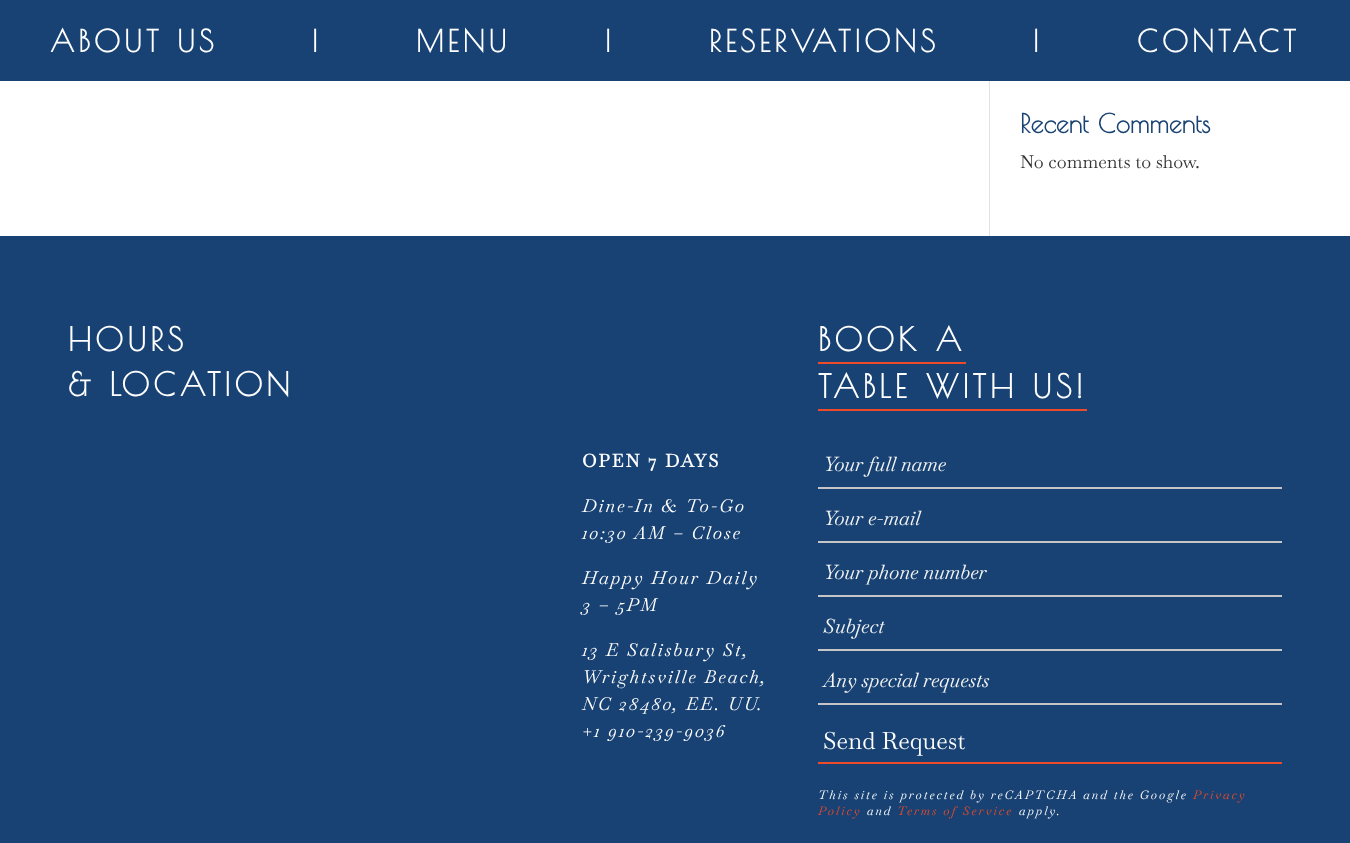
(async () => {
const canvas = document.querySelector("canvas")
canvas.width = 1350
canvas.height = 843
const c = canvas.getContext("2d")
c.miterLimit = 4
c.fontKerning = "normal"
function T(s,x,y){c.fillText(s,x,y)}
function R(x,y,w,h){c.fillRect(x,y,w,h)}
c.fillStyle="#fff"
R(0,0,1350,843)
c.fillStyle="#184273"
R(0,0,1350,81)
c.letterSpacing="4px"
c.font="bold 30px Poiret One"
c.fillStyle="#fff"
T("ABOUT US",50,52)
T("|",312,52)
T("MENU",416,52)
T("|",605,52)
T("RESERVATIONS",709,52)
T("|",1033,52)
T("CONTACT",1137,52)
c.fillStyle="#e2e2e2"
R(989,81,1,155)
c.letterSpacing="0px"
c.font="bold 26px Poiret One"
c.fillStyle="#184273"
T("Recent Comments",1020,133)
c.font="18px Baskervville"
c.fillStyle="#333"
T("No comments to show.",1020,168)
c.fillStyle="#184273"
R(0,236,1350,607)
c.letterSpacing="4px"
c.font="bold 32px Poiret One"
c.fillStyle="#fff"
T("HOURS",68,351)
T("& LOCATION",68,396)
c.letterSpacing="2px"
c.font="bold 18px Baskervville"
T("OPEN 7 DAYS",582,467)
c.font="italic 18px Baskervville"
T("Dine-In & To-Go",582,512)
T("10:30 AM – Close",582,539)
T("Happy Hour Daily",582,584)
T("3 – 5PM",582,611)
T("13 E Salisbury St,",582,656)
T("Wrightsville Beach,",582,683)
T("NC 28480, EE. UU.",582,710)
T("+1 910-239-9036",582,737)
c.fillStyle="#ee4928"
R(818,362,148,2)
c.letterSpacing="4px"
c.font="bold 32px Poiret One"
c.fillStyle="#fff"
T("BOOK A",818,351)
c.fillStyle="#ee4928"
R(818,409,269,2)
c.fillStyle="#fff"
T("TABLE WITH US!",818,398)
c.fillStyle="#c6c6c6"
R(818,487,464,2)
c.letterSpacing="0px"
c.font="italic 20px Baskervville"
c.fillStyle="#f4f4f4"
T("Your full name",823,471)
c.fillStyle="#c6c6c6"
R(818,541,464,2)
c.fillStyle="#f4f4f4"
T("Your e-mail",823,525)
c.fillStyle="#c6c6c6"
R(818,595,464,2)
c.fillStyle="#f4f4f4"
T("Your phone number",823,579)
c.fillStyle="#c6c6c6"
R(818,649,464,2)
c.fillStyle="#f4f4f4"
T("Subject",823,633)
c.fillStyle="#c6c6c6"
R(818,703,464,2)
c.fillStyle="#f4f4f4"
T("Any special requests",823,687)
c.fillStyle="#ee4928"
R(818,762,464,2)
c.font="24px Baskervville"
c.fillStyle="#fff"
T("Send Request",823,749)
c.letterSpacing="2px"
c.font="italic 12px Baskervville"
T("This site is protected by reCAPTCHA and the Google",818,799)
c.fillStyle="#ee4928"
T("Privacy",1193,799)
T("Policy",818,815)
c.fillStyle="#fff"
T("and",867,815)
c.fillStyle="#ee4928"
T("Terms of Service",897,815)
c.fillStyle="#fff"
T("apply.",1019,815)
})()
